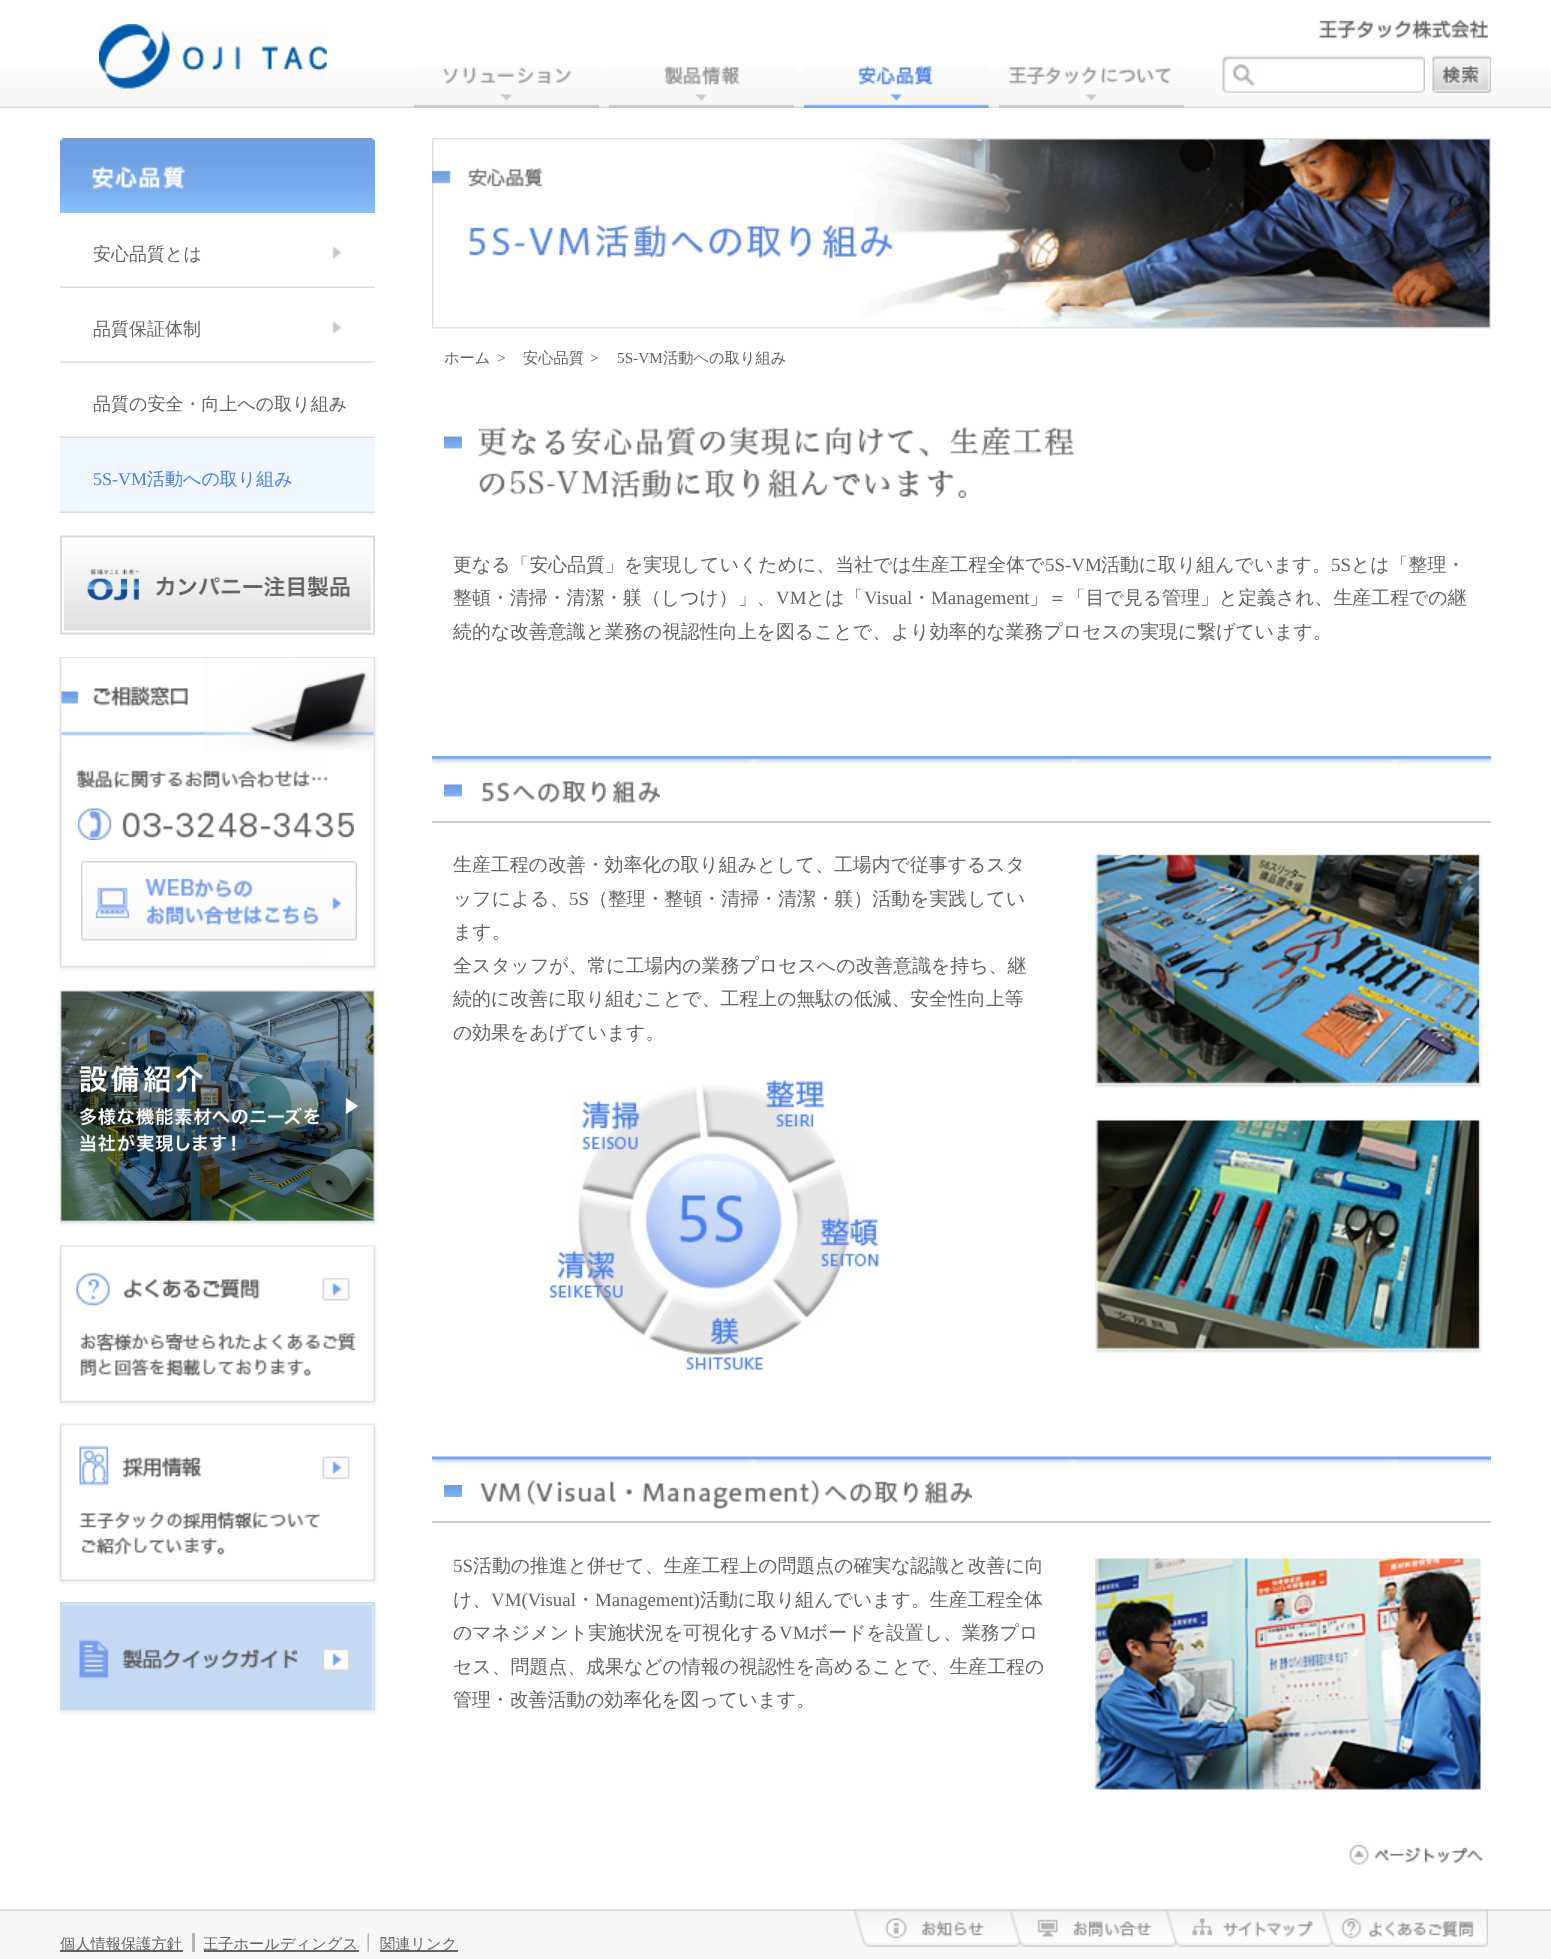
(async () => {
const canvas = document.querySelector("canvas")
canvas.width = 1551
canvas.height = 1959
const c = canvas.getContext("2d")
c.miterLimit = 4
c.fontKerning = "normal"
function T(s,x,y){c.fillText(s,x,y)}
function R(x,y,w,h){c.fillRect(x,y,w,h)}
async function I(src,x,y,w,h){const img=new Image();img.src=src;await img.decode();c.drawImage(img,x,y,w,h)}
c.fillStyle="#fff"
R(0,0,1551,1959)
await I("1.png",0,71,1551,37)
await I("2.png",99,24,228,65)
await I("3.png",598,67,1,41)
await I("4.png",414,67,185,41)
await I("5.png",793,66,1,42)
await I("6.png",609,66,185,42)
await I("7.png",804,66,185,42)
await I("5.png",1183,66,1,42)
await I("8.png",999,66,185,42)
await I("9.png",1318,19,170,20)
await I("10.png",1222,55,203,38)
await I("11.png",1432,55,59,38)
await I("12.png",60,138,315,75)
await I("13.png",60,246,315,42)
c.font="500 18px WenQuanYi Zen Hei"
c.fillStyle="#646464"
T("安心品質とは",93,260)
await I("13.png",60,321,315,42)
T("品質保証体制",93,335)
await I("13.png",60,396,315,42)
T("品質の安全・向上への取り組み",93,410)
await I("14.png",60,438,315,75)
c.font="18px Liberation Serif"
c.fillStyle="#497fe9"
T("5S-VM",93,485)
c.font="500 18px WenQuanYi Zen Hei"
T("活動への取り組み",147,485)
await I("15.png",60,535,315,100)
await I("16.png",58,657,319,2)
await I("17.png",58,658,319,319)
await I("18.png",61,658,313,94)
await I("19.png",58,965,319,12)
await I("20.png",76,769,278,71)
await I("21.png",81,861,276,80)
await I("22.png",57,988,320,238)
await I("23.png",58,1245,319,161)
await I("24.png",58,1423,319,161)
await I("25.png",60,1602,317,113)
await I("26.png",432,138,1059,191)
c.font="500 15.25px WenQuanYi Zen Hei"
c.fillStyle="#646464"
T("ホーム",444,363)
c.font="15.25px Liberation Serif"
T(">",497,363)
c.font="500 15.25px WenQuanYi Zen Hei"
T("安心品質",523,363)
c.font="15.25px Liberation Serif"
T(">",590,363)
T("5S-VM",617,363)
c.font="500 15.25px WenQuanYi Zen Hei"
T("活動への取り組み",663,363)
await I("27.png",444,436,18,13)
await I("28.png",477,426,597,72)
c.font="500 18.9px WenQuanYi Zen Hei"
T("更なる「安心品質」を実現していくために、当社では生産工程全体で",453,571)
c.font="18.9px Liberation Serif"
T("5S-VM",1045,571)
c.font="500 18.9px WenQuanYi Zen Hei"
T("活動に取り組んでいます。",1101,571)
c.font="18.9px Liberation Serif"
T("5S",1331,571)
c.font="500 18.9px WenQuanYi Zen Hei"
T("とは「整理・",1351,571)
T("整頓・清掃・清潔・躾（しつけ）」、",453,604)
c.font="18.9px Liberation Serif"
T("VM",776,604)
c.font="500 18.9px WenQuanYi Zen Hei"
T("とは「",806,604)
c.font="18.9px Liberation Serif"
T("Visual",864,604)
c.font="500 18.9px WenQuanYi Zen Hei"
T("・",912,604)
c.font="18.9px Liberation Serif"
T("Management",931,604)
c.font="500 18.9px WenQuanYi Zen Hei"
T("」＝「目で見る管理」と定義され、生産工程での継",1029,604)
T("続的な改善意識と業務の視認性向上を図ることで、より効率的な業務プロセスの実現に繋げています。",453,638)
await I("29.png",432,756,1059,9)
c.fillStyle="#cdcdcd"
R(432,821,1059,2)
await I("27.png",444,784,18,13)
await I("30.png",481,780,179,24)
c.fillStyle="#646464"
T("生産工程の改善・効率化の取り組みとして、工場内で従事するスタ",453,871)
T("ッフによる、",453,905)
c.font="18.9px Liberation Serif"
T("5S",569,905)
c.font="500 18.9px WenQuanYi Zen Hei"
T("（整理・整頓・清掃・清潔・躾）活動を実践してい",589,905)
T("ます。",453,938)
T("全スタッフが、常に工場内の業務プロセスへの改善意識を持ち、継",453,972)
T("続的に改善に取り組むことで、工程上の無駄の低減、安全性向上等",453,1005)
T("の効果をあげています。",453,1039)
await I("31.png",549,1080,330,290)
await I("32.png",1095,853,387,235)
await I("33.png",1095,1119,387,234)
await I("34.png",432,1456,1059,9)
c.fillStyle="#cdcdcd"
R(432,1521,1059,2)
await I("35.png",444,1485,18,12)
await I("36.png",479,1480,493,29)
c.font="18.9px Liberation Serif"
c.fillStyle="#646464"
T("5S",453,1572)
c.font="500 18.9px WenQuanYi Zen Hei"
T("活動の推進と併せて、生産工程上の問題点の確実な認識と改善に向",473,1572)
T("け、",453,1606)
c.font="18.9px Liberation Serif"
T("VM(Visual",491,1606)
c.font="500 18.9px WenQuanYi Zen Hei"
T("・",576,1606)
c.font="18.9px Liberation Serif"
T("Management)",595,1606)
c.font="500 18.9px WenQuanYi Zen Hei"
T("活動に取り組んでいます。生産工程全体",700,1606)
T("のマネジメント実施状況を可視化する",453,1639)
c.font="18.9px Liberation Serif"
T("VM",779,1639)
c.font="500 18.9px WenQuanYi Zen Hei"
T("ボードを設置し、業務プロ",809,1639)
T("セス、問題点、成果などの情報の視認性を高めることで、生産工程の",453,1673)
T("管理・改善活動の効率化を図っています。",453,1706)
await I("37.png",1095,1558,387,232)
await I("38.png",1348,1845,136,20)
c.fillStyle="#f7f7f7"
R(0,1911,1551,48)
await I("39.png",0,1909,1551,2)
c.fillStyle="#646464"
R(60,1950,123,2)
c.font="500 15.25px WenQuanYi Zen Hei"
T("個人情報保護方針",60,1949)
c.fillStyle="#b4b4b4"
R(192,1933,3,19)
c.fillStyle="#646464"
R(204,1950,155,2)
T("王子ホールディングス",203,1949)
await I("40.png",367,1933,2,19)
R(380,1950,78,2)
T("関連リンク",380,1949)
await I("41.png",853,1909,635,38)
})()
